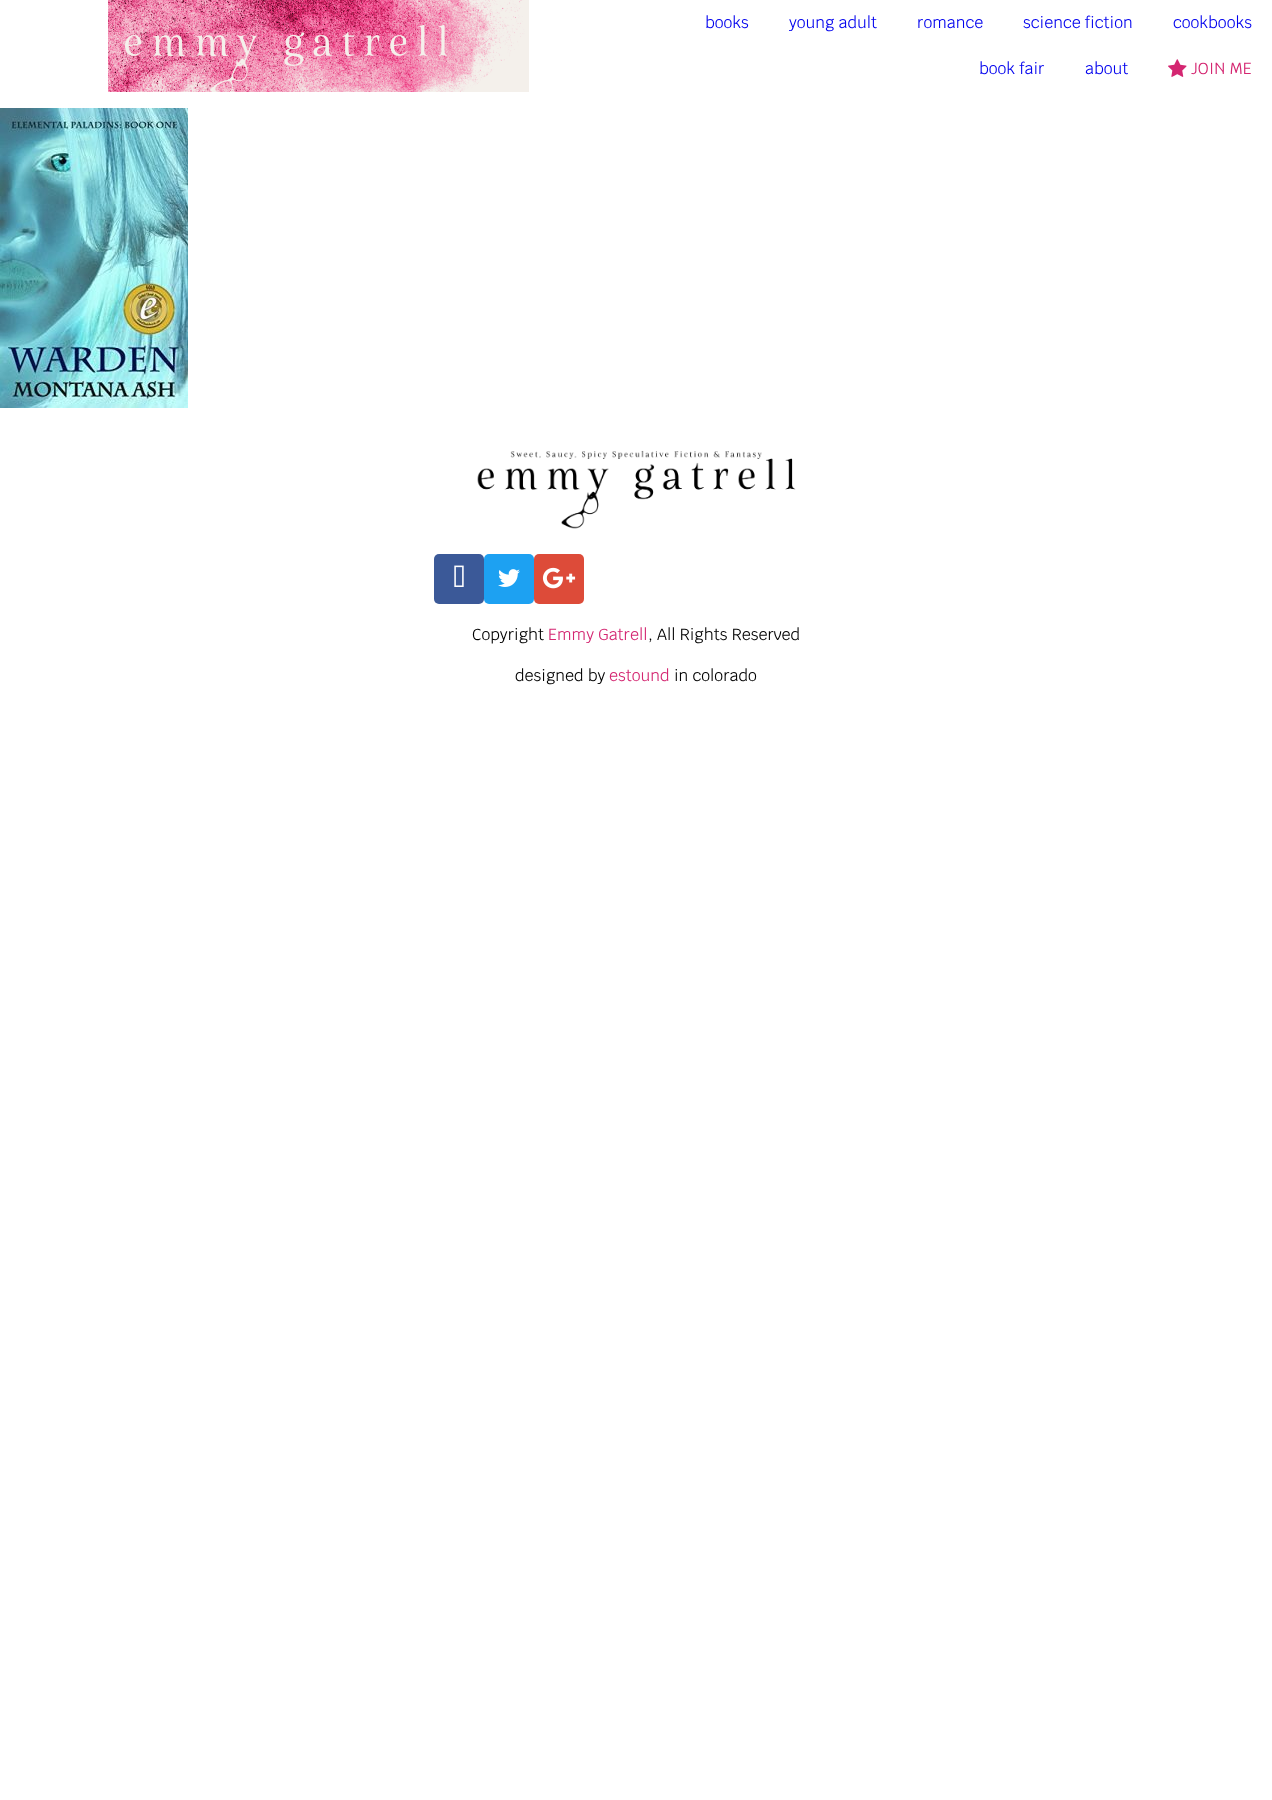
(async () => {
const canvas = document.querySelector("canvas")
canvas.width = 1272
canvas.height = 1800
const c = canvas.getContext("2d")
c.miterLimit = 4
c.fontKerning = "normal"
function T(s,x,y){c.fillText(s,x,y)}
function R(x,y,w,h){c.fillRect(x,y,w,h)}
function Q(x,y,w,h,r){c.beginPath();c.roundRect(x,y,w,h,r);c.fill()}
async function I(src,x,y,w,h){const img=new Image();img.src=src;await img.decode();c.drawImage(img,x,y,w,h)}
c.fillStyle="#fff"
R(0,0,1272,1800)
await I("1.png",108,0,421,92)
c.font="16px Krub"
c.fillStyle="#00e"
T("books",705,28)
T("young adult",789,28)
T("romance",917,28)
T("science fiction",1023,28)
T("cookbooks",1173,28)
T("book fair",979,74)
T("about",1085,74)
await I("2.png",1168,59,19,18)
c.fillStyle="#d42671"
T("JOIN ME",1191,74)
await I("3.png",0,108,188,300)
await I("4.png",477,450,319,79)
c.fillStyle="#3b5998"
Q(434,554,50,50,5)
await I("5.png",454,565,10,22)
c.fillStyle="#1da1f2"
Q(484,554,50,50,5)
await I("6.png",498,569,22,18)
c.fillStyle="#dd4b39"
Q(534,554,50,50,5)
await I("7.png",542,567,34,22)
c.fillStyle="#000"
T("Copyright",472,640)
c.fillStyle="#d42671"
T("Emmy Gatrell",548,640)
c.fillStyle="#000"
T(", All Rights Reserved",648,640)
T("designed by",515,681)
c.fillStyle="#d42671"
T("estound",609,681)
c.fillStyle="#000"
T("in colorado",674,681)
})()
